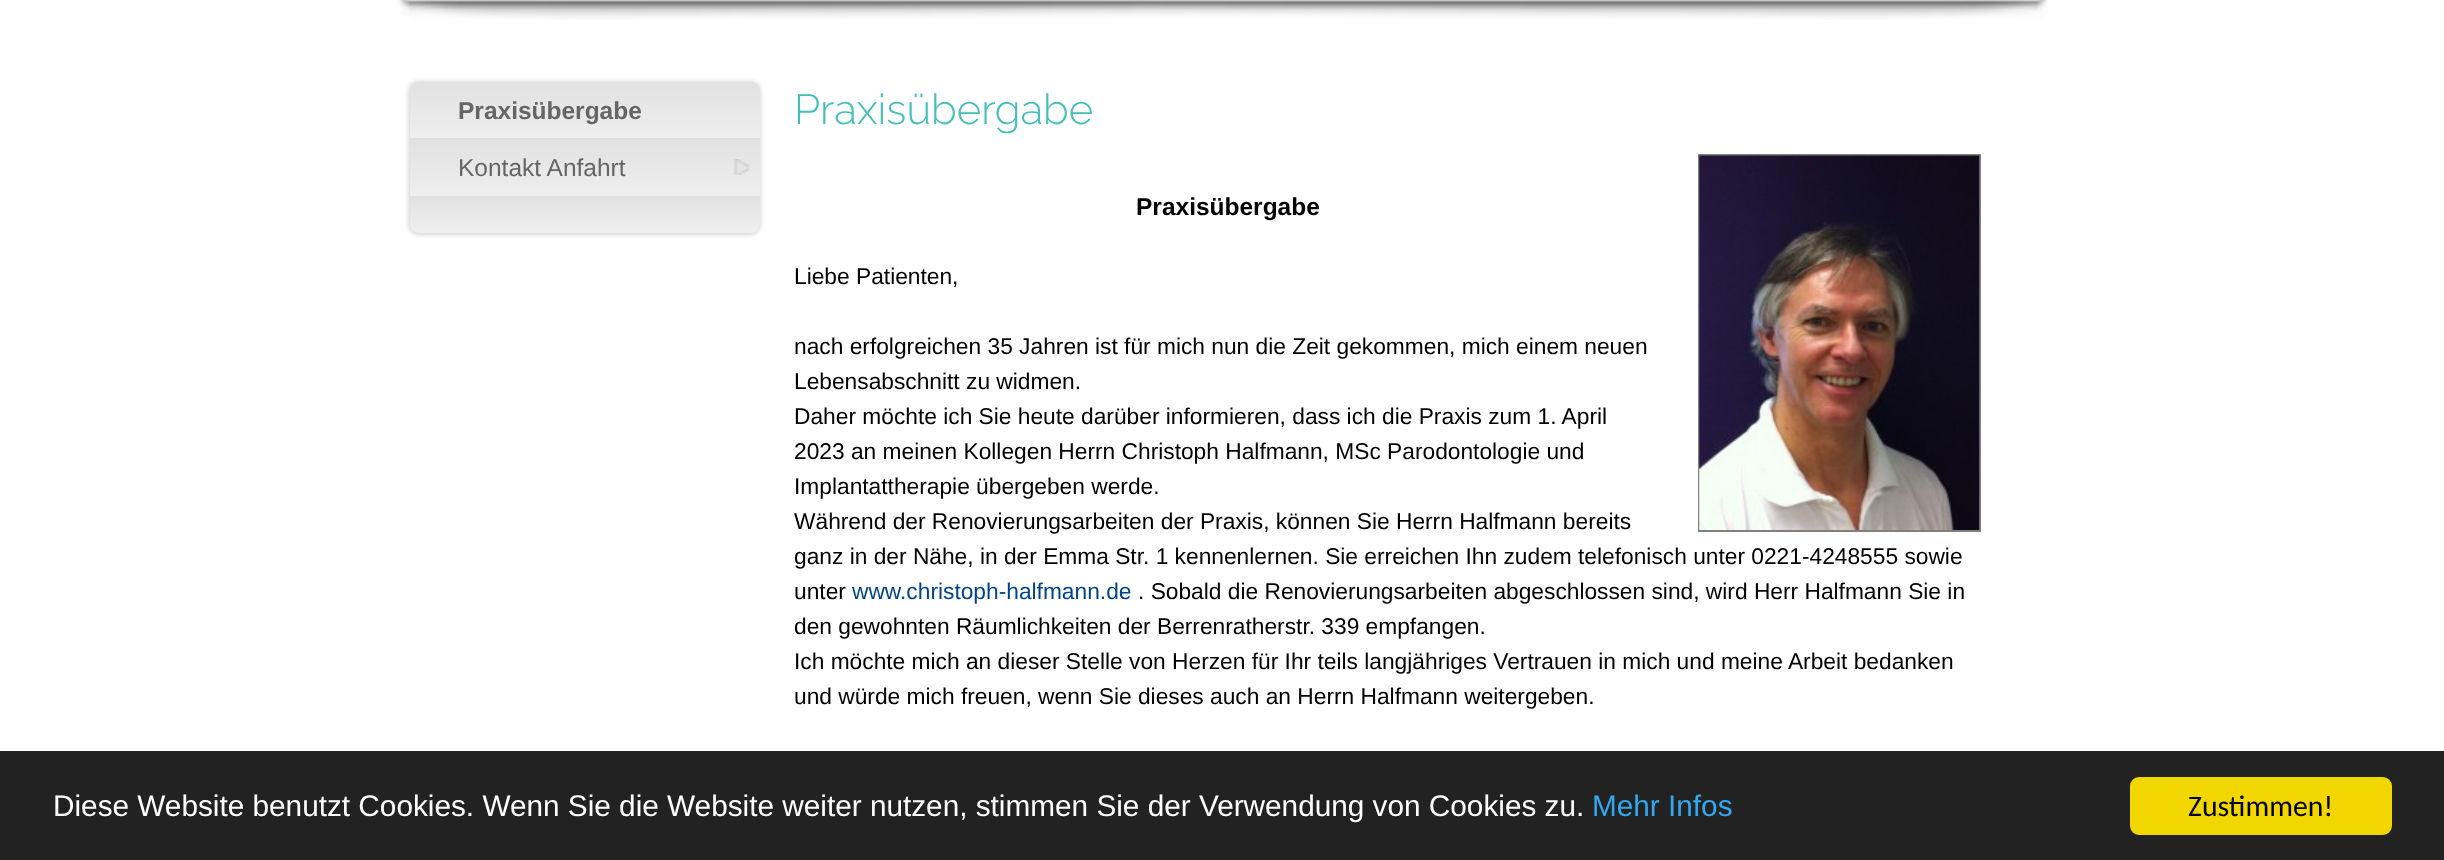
(async () => {
const canvas = document.querySelector("canvas")
canvas.width = 2444
canvas.height = 860
const c = canvas.getContext("2d")
c.miterLimit = 4
c.fontKerning = "normal"
function T(s,x,y){c.fillText(s,x,y)}
function R(x,y,w,h){c.fillRect(x,y,w,h)}
function Q(x,y,w,h,r){c.beginPath();c.roundRect(x,y,w,h,r);c.fill()}
async function I(src,x,y,w,h){const img=new Image();img.src=src;await img.decode();c.drawImage(img,x,y,w,h)}
let gradient
c.fillStyle="#fff"
R(0,0,2444,860)
await I("1.png",397,0,1651,20)
c.fillStyle="#00000026"
c.filter="blur(2px)"
c.beginPath()
c.roundRect(408,81,353,154,11)
c.fill()
c.filter="none"
gradient = c.createLinearGradient(585,82,585,138)
gradient.addColorStop(0,"#e1e1e1")
gradient.addColorStop(1,"#efefef")
c.fillStyle = gradient
c.beginPath()
c.roundRect(410,82,350,56,[9,9,0,0])
c.fill()
c.font="bold 24.5px Liberation Sans"
c.fillStyle="#666"
T("Praxisübergabe",458,119)
gradient = c.createLinearGradient(585,138,585,196)
gradient.addColorStop(0,"#e1e1e1")
gradient.addColorStop(1,"#efefef")
c.fillStyle = gradient
R(410,138,350,58)
c.font="24.5px Liberation Sans"
c.fillStyle="#666"
T("Kontakt Anfahrt",458,176)
await I("2.png",733,159,17,16)
gradient = c.createLinearGradient(585,196,585,233)
gradient.addColorStop(0,"#e1e1e1")
gradient.addColorStop(1,"#efefef")
c.fillStyle = gradient
c.beginPath()
c.roundRect(410,196,350,37,[0,0,9,9])
c.fill()
c.font="100 42px Raleway"
c.fillStyle="#42c0b7"
T("Praxisübergabe",794,124)
c.font="bold 24.5px Liberation Sans"
c.fillStyle="#000"
T("Praxisübergabe",1136,215)
c.strokeStyle="#808080"
c.lineWidth=2
c.strokeRect(1699,155,281,376)
await I("3.png",1699,155,281,375)
c.font="22.75px Liberation Sans"
T("Liebe Patienten,",794,284)
T("nach erfolgreichen 35 Jahren ist für mich nun die Zeit gekommen, mich einem neuen",794,354)
T("Lebensabschnitt zu widmen.",794,389)
T("Daher möchte ich Sie heute darüber informieren, dass ich die Praxis zum 1. April",794,424)
T("2023 an meinen Kollegen Herrn Christoph Halfmann, MSc Parodontologie und",794,459)
T("Implantattherapie übergeben werde.",794,494)
T("Während der Renovierungsarbeiten der Praxis, können Sie Herrn Halfmann bereits",794,529)
T("ganz in der Nähe, in der Emma Str. 1 kennenlernen. Sie erreichen Ihn zudem telefonisch unter 0221-4248555 sowie",794,564)
T("unter",794,599)
c.fillStyle="#004588"
T("www.christoph-halfmann.de",852,599)
c.fillStyle="#000"
T(". Sobald die Renovierungsarbeiten abgeschlossen sind, wird Herr Halfmann Sie in",1138,599)
T("den gewohnten Räumlichkeiten der Berrenratherstr. 339 empfangen.",794,634)
T("Ich möchte mich an dieser Stelle von Herzen für Ihr teils langjähriges Vertrauen in mich und meine Arbeit bedanken",794,669)
T("und würde mich freuen, wenn Sie dieses auch an Herrn Halfmann weitergeben.",794,704)
c.fillStyle="#222"
R(0,751,2444,109)
c.font="29.75px Liberation Sans"
c.fillStyle="#fff"
T("Diese Website benutzt Cookies. Wenn Sie die Website weiter nutzen, stimmen Sie der Verwendung von Cookies zu.",53,816)
c.fillStyle="#31a8f0"
T("Mehr Infos",1592,816)
c.fillStyle="#f1d600"
Q(2130,777,262,58,9)
c.font="29.75px Carlito"
c.fillStyle="#000"
T("Zustimmen!",2188,816)
})()
